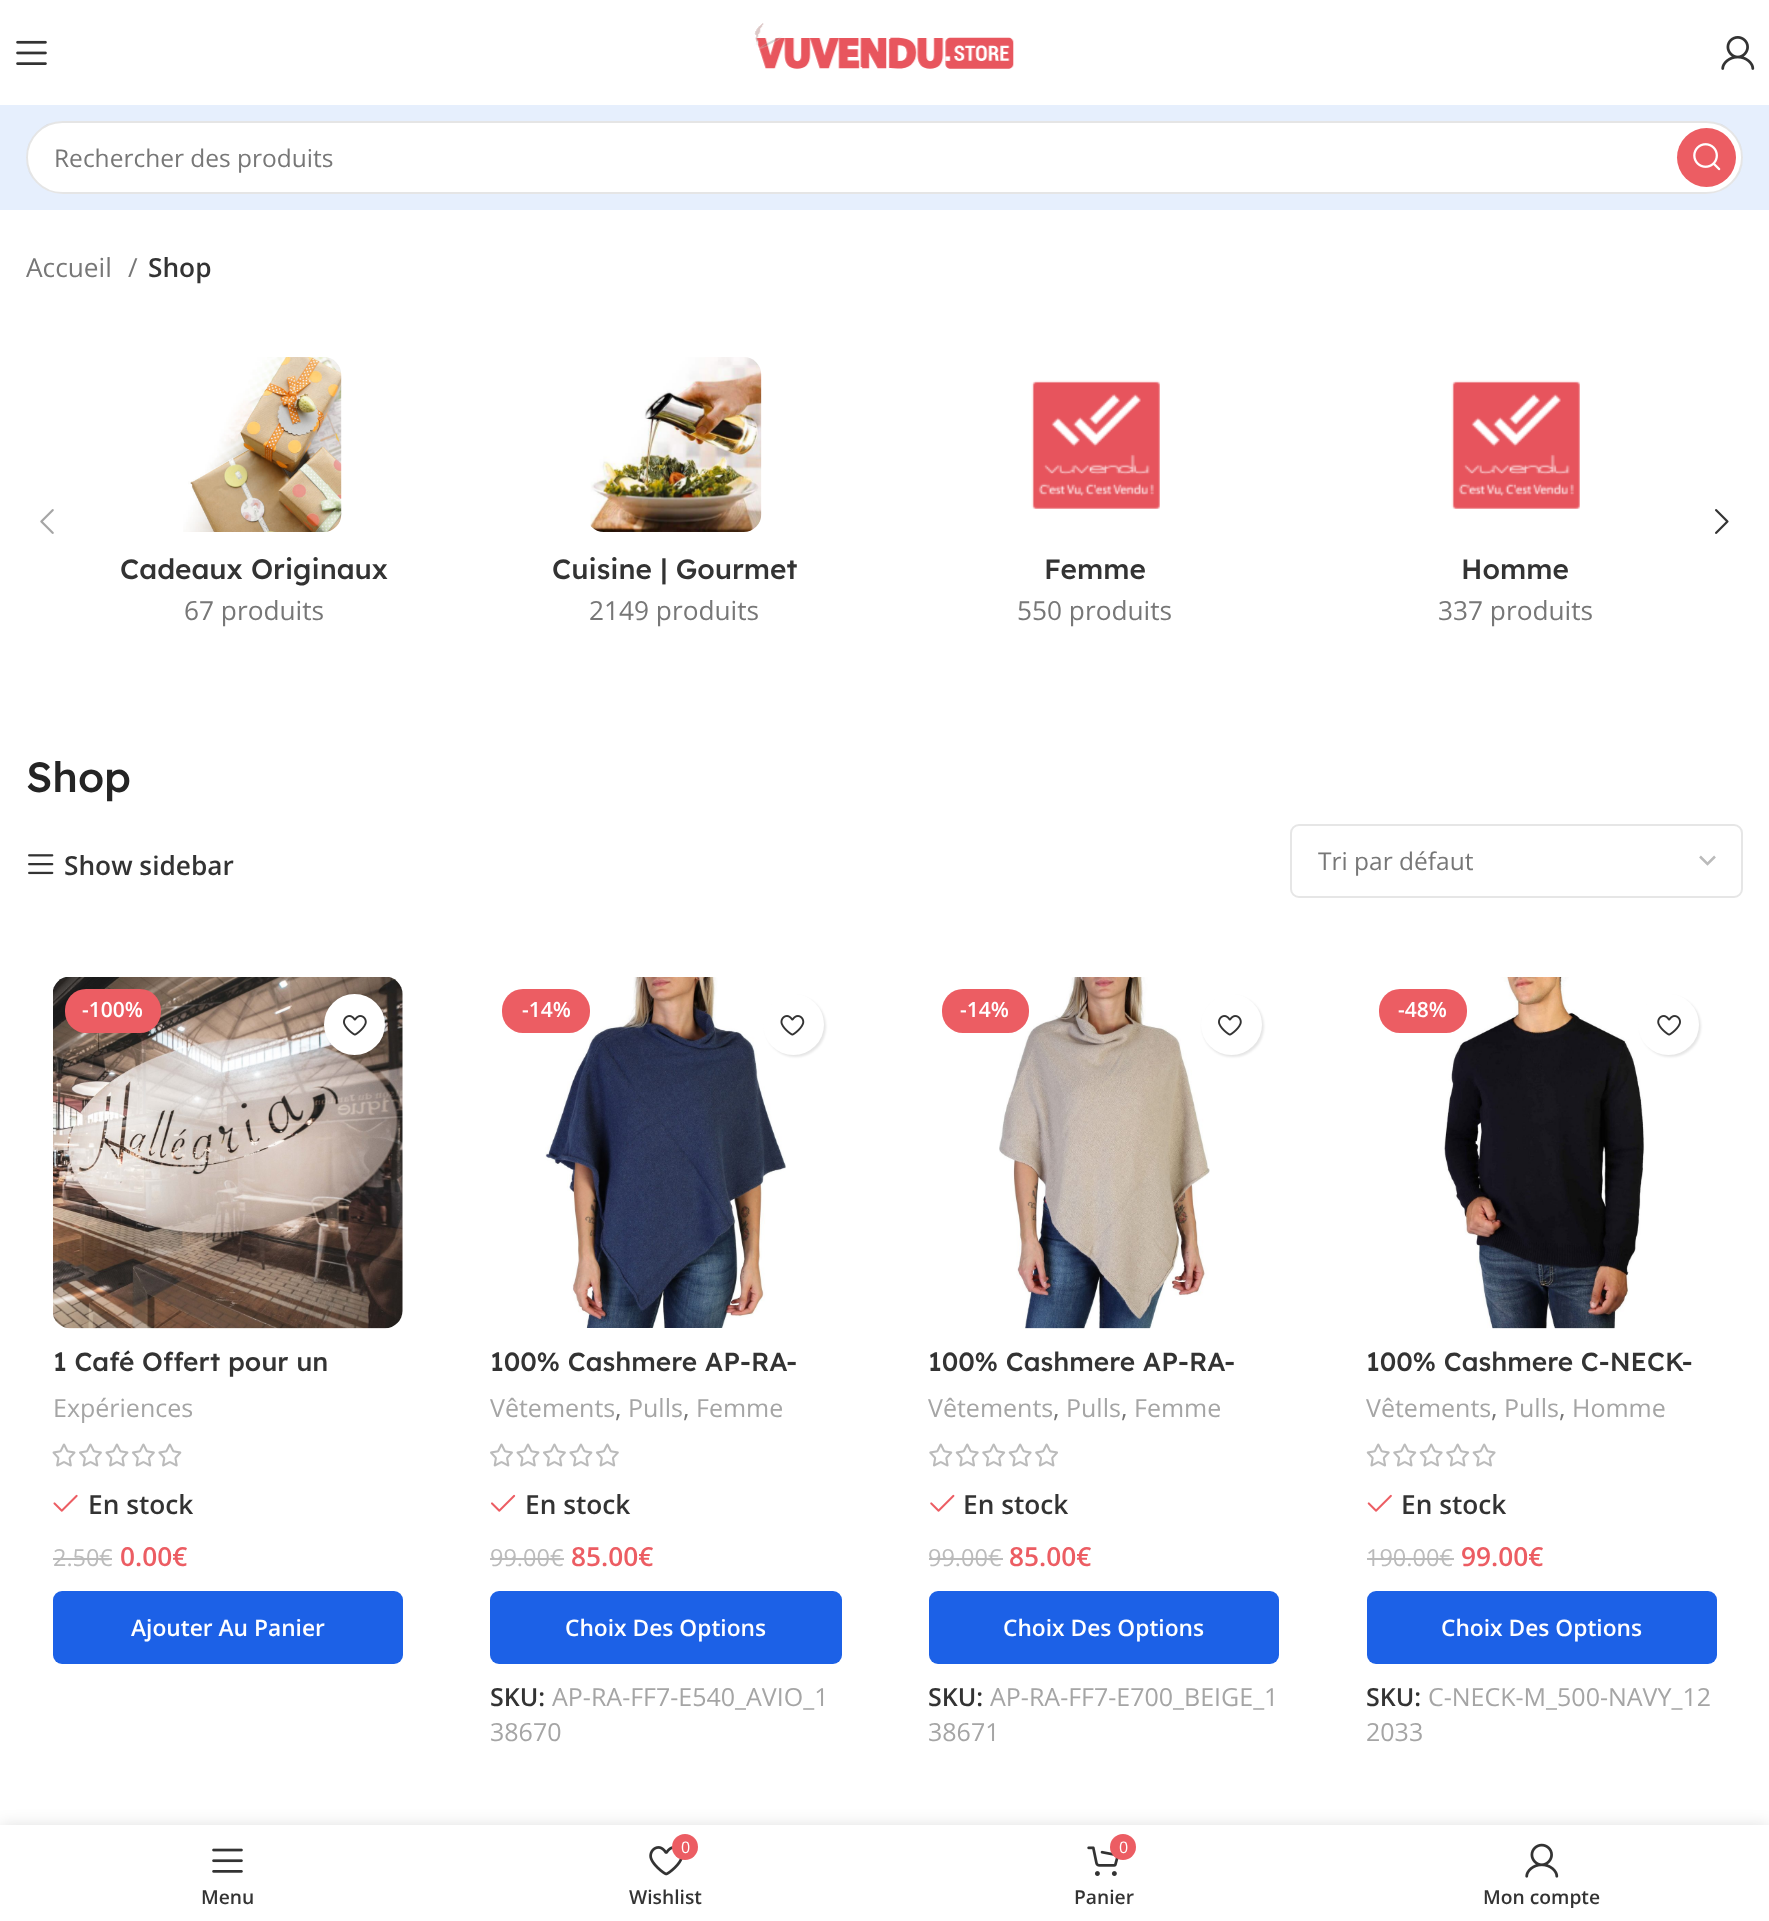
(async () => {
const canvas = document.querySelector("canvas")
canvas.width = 1769
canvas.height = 1921
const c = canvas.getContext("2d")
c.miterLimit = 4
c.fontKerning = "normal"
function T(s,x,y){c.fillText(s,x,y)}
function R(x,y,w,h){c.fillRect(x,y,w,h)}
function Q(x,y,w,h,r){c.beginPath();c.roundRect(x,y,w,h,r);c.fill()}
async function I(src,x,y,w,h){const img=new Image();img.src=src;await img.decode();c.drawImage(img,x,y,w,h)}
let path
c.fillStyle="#fff"
R(0,0,1769,1921)
await I("1.png",16,40,31,25)
await I("2.png",754,23,260,46)
await I("3.png",1721,36,34,34)
c.fillStyle="#e6effd"
R(0,105,1769,105)
c.fillStyle="#fff"
Q(26,121,1717,73,36.5)
c.beginPath()
c.roundRect(27,122,1715,71,35.5)
c.strokeStyle="#0000001a"
c.lineWidth=2
c.stroke()
c.font="24.5px Open Sans"
c.fillStyle="#777"
T("Rechercher des produits",54,167)
c.fillStyle="#ec5d63"
c.beginPath()
c.arc(1706.5,157.5,29.5,0,7)
c.fill()
await I("4.png",1693,143,28,28)
c.font="26.25px Open Sans"
c.fillStyle="#777"
T("Accueil",26,277)
T("/",128,277)
c.font="600 26.25px Open Sans"
c.fillStyle="#333"
T("Shop",148,277)
await I("5.png",40,509,14,25)
await I("6.png",1715,509,14,25)
await I("7.png",183,357,159,175)
c.font="500 28px Lexend Deca"
T("Cadeaux Originaux",120,579)
c.font="26.25px Open Sans"
c.fillStyle="#777"
T("67 produits",184,620)
await I("8.png",590,357,172,175)
c.font="500 28px Lexend Deca"
c.fillStyle="#333"
T("Cuisine | Gourmet",552,579)
c.font="26.25px Open Sans"
c.fillStyle="#777"
T("2149 produits",589,620)
await I("9.png",1031,380,129,129)
c.font="500 28px Lexend Deca"
c.fillStyle="#333"
T("Femme",1044,579)
c.font="26.25px Open Sans"
c.fillStyle="#777"
T("550 produits",1017,620)
await I("10.png",1451,380,129,129)
c.font="500 28px Lexend Deca"
c.fillStyle="#333"
T("Homme",1461,579)
c.font="26.25px Open Sans"
c.fillStyle="#777"
T("337 produits",1438,620)
c.font="500 42px Lexend Deca"
c.fillStyle="#242424"
T("Shop",26,792)
await I("11.png",28,854,26,21)
c.font="600 26.25px Open Sans"
c.fillStyle="#333"
T("Show sidebar",64,875)
path = new Path2D("M1700 856.5l7.5 7.5l7.5-7.5")
c.strokeStyle="#bbb"
c.lineWidth=2.5
c.stroke(path)
c.beginPath()
c.roundRect(1291,825,451,72,8)
c.strokeStyle="#e6e6e6"
c.lineWidth=2
c.stroke()
c.font="24.5px Open Sans"
c.fillStyle="#777"
T("Tri par défaut",1318,870)
await I("12.png",53,977,350,352)
c.fillStyle="#ec5d63"
Q(65,989,96,44,21)
c.font="600 21px Open Sans"
c.fillStyle="#fff"
T("-100%",82,1017)
c.fillStyle="#0000001a"
c.filter="blur(1px)"
c.beginPath()
c.roundRect(326,996,61,61,30.5)
c.fill()
c.filter="none"
c.fillStyle="#fff"
c.beginPath()
c.arc(354.5,1024.5,30.5,0,7)
c.fill()
await I("13.png",343,1015,24,21)
c.font="500 26.25px Lexend Deca"
c.fillStyle="#333"
T("1 Café Offert pour un",53,1371)
c.font="25px Open Sans"
c.fillStyle="#a5a5a5"
T("Expériences",53,1417)
await I("14.png",52,1443,130,24)
await I("15.png",53,1494,25,18)
c.font="600 26.25px Open Sans"
c.fillStyle="#333"
T("En stock",88,1514)
c.font="23.5px Open Sans"
c.fillStyle="#bbb"
T("2.50",53,1566)
R(53,1558,47,2)
T("€",99,1566)
R(100,1558,12,2)
c.font="600 26.25px Open Sans"
c.fillStyle="#ec5d63"
T("0.00€",120,1566)
c.fillStyle="#1c61e7"
Q(53,1591,350,73,9)
c.font="600 22.75px Open Sans"
c.fillStyle="#fff"
T("Ajouter Au Panier",131,1636)
await I("16.png",545,977,241,351)
c.fillStyle="#ec5d63"
Q(502,989,88,44,21)
c.font="600 21px Open Sans"
c.fillStyle="#fff"
T("-14%",522,1017)
c.fillStyle="#0000001a"
c.filter="blur(1px)"
c.beginPath()
c.roundRect(765,996,61,61,30.5)
c.fill()
c.filter="none"
c.fillStyle="#fff"
c.beginPath()
c.arc(793.5,1024.5,30.5,0,7)
c.fill()
await I("17.png",780,1015,25,21)
c.font="500 26.25px Lexend Deca"
c.fillStyle="#333"
T("100% Cashmere AP-RA-",490,1371)
c.font="25px Open Sans"
c.fillStyle="#a5a5a5"
T("Vêtements",490,1417)
c.fillStyle="#777"
T(",",615,1417)
c.fillStyle="#a5a5a5"
T("Pulls",628,1417)
c.fillStyle="#777"
T(",",683,1417)
c.fillStyle="#a5a5a5"
T("Femme",696,1417)
await I("18.png",490,1443,129,24)
await I("19.png",491,1494,25,18)
c.font="600 26.25px Open Sans"
c.fillStyle="#333"
T("En stock",525,1514)
c.font="23.5px Open Sans"
c.fillStyle="#bbb"
T("99.00€",490,1566)
R(490,1558,74,2)
c.font="600 26.25px Open Sans"
c.fillStyle="#ec5d63"
T("85.00€",571,1566)
c.fillStyle="#1c61e7"
Q(490,1591,352,73,9)
c.font="600 22.75px Open Sans"
c.fillStyle="#fff"
T("Choix Des Options",565,1636)
c.font="600 25px Open Sans"
c.fillStyle="#333"
T("SKU:",490,1706)
c.font="25px Open Sans"
c.fillStyle="#a5a5a5"
T("AP-RA-FF7-E540_AVIO_1",552,1706)
T("38670",490,1741)
await I("20.png",999,977,211,352)
c.fillStyle="#ec5d63"
Q(942,989,87,44,21)
c.font="600 21px Open Sans"
c.fillStyle="#fff"
T("-14%",960,1017)
c.fillStyle="#0000001a"
c.filter="blur(1px)"
c.beginPath()
c.roundRect(1202,996,62,61,30.5)
c.fill()
c.filter="none"
c.fillStyle="#fff"
c.beginPath()
c.arc(1231.5,1024.5,30.5,0,7)
c.fill()
await I("13.png",1218,1015,24,21)
c.font="500 26.25px Lexend Deca"
c.fillStyle="#333"
T("100% Cashmere AP-RA-",928,1371)
c.font="25px Open Sans"
c.fillStyle="#a5a5a5"
T("Vêtements",928,1417)
c.fillStyle="#777"
T(",",1053,1417)
c.fillStyle="#a5a5a5"
T("Pulls",1066,1417)
c.fillStyle="#777"
T(",",1121,1417)
c.fillStyle="#a5a5a5"
T("Femme",1134,1417)
await I("21.png",929,1443,129,24)
await I("22.png",930,1494,25,18)
c.font="600 26.25px Open Sans"
c.fillStyle="#333"
T("En stock",963,1514)
c.font="23.5px Open Sans"
c.fillStyle="#bbb"
T("99.00€",928,1566)
R(929,1558,74,2)
c.font="600 26.25px Open Sans"
c.fillStyle="#ec5d63"
T("85.00€",1009,1566)
c.fillStyle="#1c61e7"
Q(929,1591,350,73,9)
c.font="600 22.75px Open Sans"
c.fillStyle="#fff"
T("Choix Des Options",1003,1636)
c.font="600 25px Open Sans"
c.fillStyle="#333"
T("SKU:",928,1706)
c.font="25px Open Sans"
c.fillStyle="#a5a5a5"
T("AP-RA-FF7-E700_BEIGE_1",990,1706)
T("38671",928,1741)
await I("23.png",1444,977,201,352)
c.fillStyle="#ec5d63"
Q(1379,989,88,44,21)
c.font="600 21px Open Sans"
c.fillStyle="#fff"
T("-48%",1398,1017)
c.fillStyle="#0000001a"
c.filter="blur(1px)"
c.beginPath()
c.roundRect(1640,996,61,61,30.5)
c.fill()
c.filter="none"
c.fillStyle="#fff"
c.beginPath()
c.arc(1668.5,1024.5,30.5,0,7)
c.fill()
await I("24.png",1657,1015,24,21)
c.font="500 26.25px Lexend Deca"
c.fillStyle="#333"
T("100% Cashmere C-NECK-",1366,1371)
c.font="25px Open Sans"
c.fillStyle="#a5a5a5"
T("Vêtements",1366,1417)
c.fillStyle="#777"
T(",",1491,1417)
c.fillStyle="#a5a5a5"
T("Pulls",1504,1417)
c.fillStyle="#777"
T(",",1559,1417)
c.fillStyle="#a5a5a5"
T("Homme",1572,1417)
await I("25.png",1366,1443,130,24)
await I("26.png",1367,1494,25,18)
c.font="600 26.25px Open Sans"
c.fillStyle="#333"
T("En stock",1401,1514)
c.font="23.5px Open Sans"
c.fillStyle="#bbb"
T("190.00€",1366,1566)
R(1367,1558,87,2)
c.font="600 26.25px Open Sans"
c.fillStyle="#ec5d63"
T("99.00€",1461,1566)
c.fillStyle="#1c61e7"
Q(1367,1591,350,73,9)
c.font="600 22.75px Open Sans"
c.fillStyle="#fff"
T("Choix Des Options",1441,1636)
c.font="600 25px Open Sans"
c.fillStyle="#333"
T("SKU:",1366,1706)
c.font="25px Open Sans"
c.fillStyle="#a5a5a5"
T("C-NECK-M_500-NAVY_12",1428,1706)
T("2033",1366,1741)
c.fillStyle="#0000001f"
c.filter="blur(8px)"
c.beginPath()
c.rect(0,1825,1769,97)
c.fill()
c.filter="none"
c.fillStyle="#fff"
R(0,1825,1769,96)
await I("27.png",212,1848,31,25)
c.font="600 19.25px Open Sans"
c.fillStyle="#333"
T("Menu",201,1904)
await I("28.png",649,1846,34,30)
c.fillStyle="#ec5d63"
c.beginPath()
c.arc(685,1847,13,0,7)
c.fill()
c.font="16px Open Sans"
c.fillStyle="#fff"
T("0",681,1853)
c.font="600 19.25px Open Sans"
c.fillStyle="#333"
T("Wishlist",629,1904)
await I("29.png",1087,1846,32,30)
c.fillStyle="#ec5d63"
c.beginPath()
c.arc(1123,1847,13,0,7)
c.fill()
c.font="16px Open Sans"
c.fillStyle="#fff"
T("0",1119,1853)
c.font="600 19.25px Open Sans"
c.fillStyle="#333"
T("Panier",1074,1904)
await I("30.png",1525,1843,34,35)
c.save()
c.beginPath()
c.rect(1341,1885,402,23)
c.clip()
T("Mon compte",1483,1904)
c.restore()
})()
